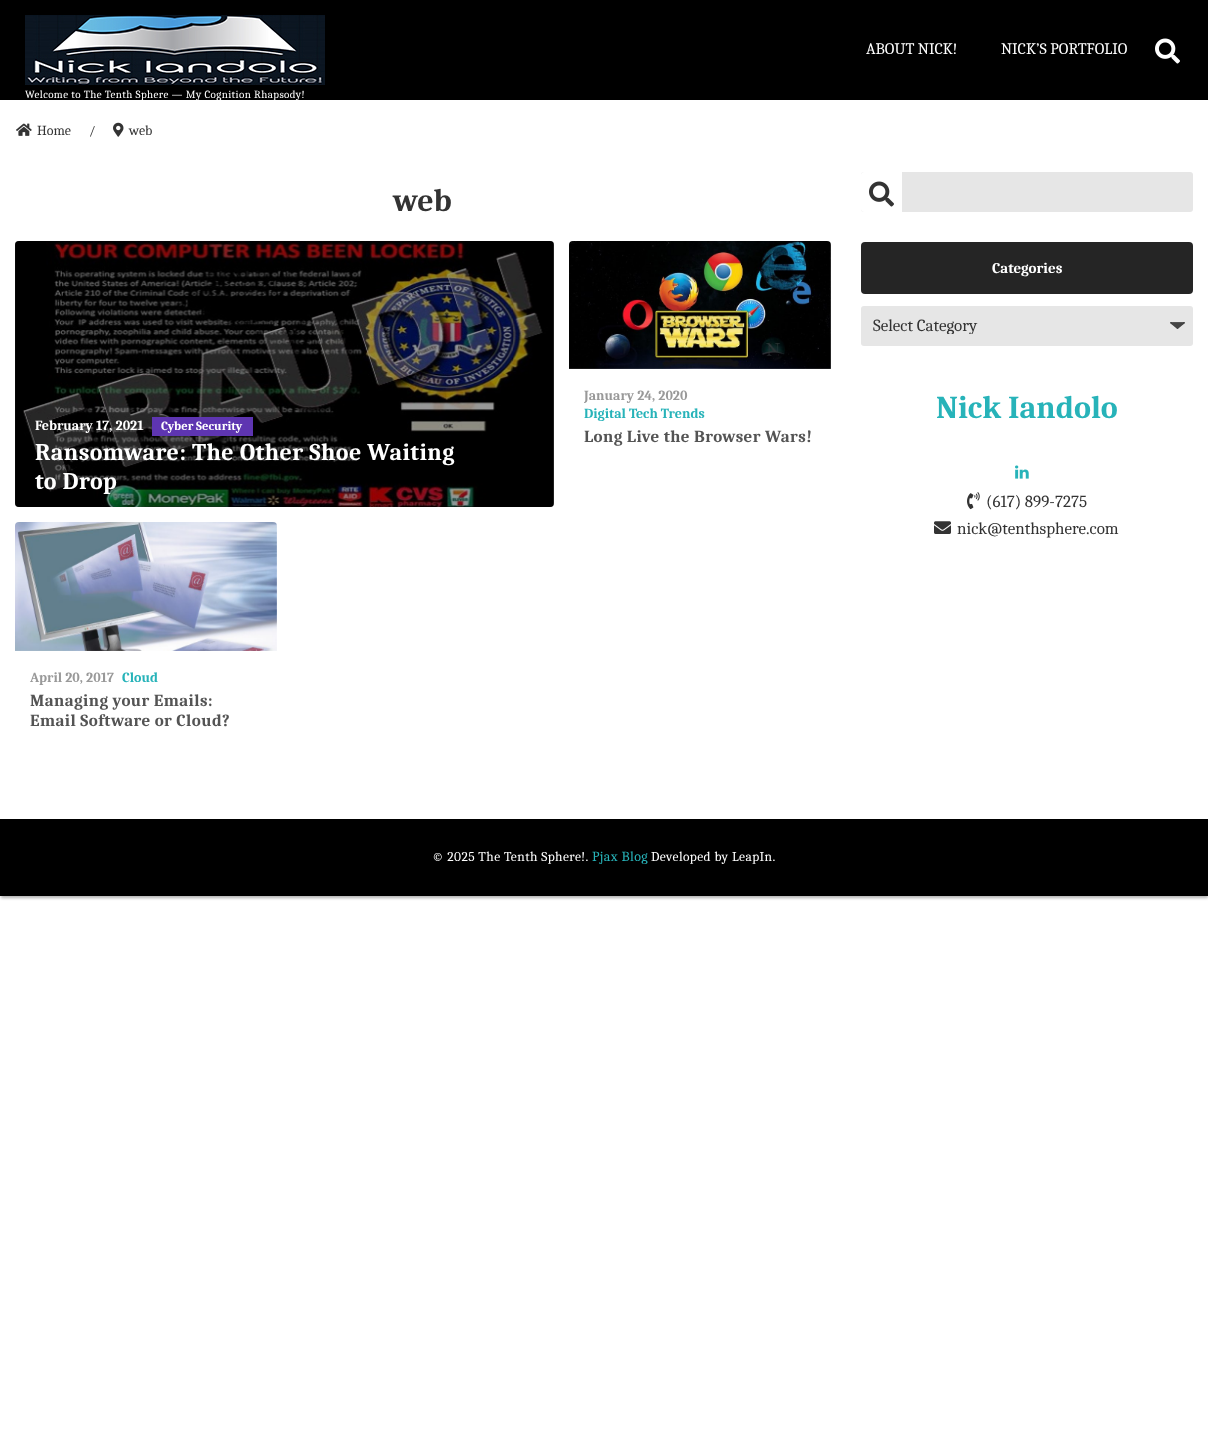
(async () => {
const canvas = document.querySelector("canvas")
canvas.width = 1208
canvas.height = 1430
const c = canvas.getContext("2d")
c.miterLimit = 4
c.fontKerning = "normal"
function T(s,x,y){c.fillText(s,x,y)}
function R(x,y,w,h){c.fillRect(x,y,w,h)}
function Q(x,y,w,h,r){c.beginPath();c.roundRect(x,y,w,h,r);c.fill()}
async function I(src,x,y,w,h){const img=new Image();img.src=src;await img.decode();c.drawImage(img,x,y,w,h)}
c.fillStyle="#fff"
R(0,0,1208,1430)
c.fillStyle="#0000004d"
c.filter="blur(1.5px)"
c.beginPath()
c.rect(1,103,1207,795)
c.fill()
c.filter="none"
c.fillStyle="#000"
R(0,0,1208,100)
c.font="16px Caladea"
c.fillStyle="#fff"
T("ABOUT NICK!",866,54)
T("NICK’S PORTFOLIO",1001,54)
await I("1.png",1155,38,25,26)
await I("2.png",25,15,300,70)
R(0,100,1208,719)
c.letterSpacing="0.4px"
c.font="11px Caladea"
T("Welcome to The Tenth Sphere — My Cognition Rhapsody!",25,98)
await I("3.png",16,123,16,13)
c.letterSpacing="0px"
c.font="14px Caladea"
c.fillStyle="#333"
T("Home",37,135)
c.font="13px Caladea"
T("/",89,135)
await I("4.png",113,122,11,15)
c.font="14px Caladea"
T("web",129,135)
c.font="bold 32px Caladea"
T("web",393,211)
await I("5.png",15,241,539,266)
c.fillStyle="#00000066"
Q(15,241,539,266,4)
c.font="bold 14px Caladea"
c.fillStyle="#fff"
T("February 17, 2021",35,430)
c.fillStyle="#5e35b1"
R(152,417,101,19)
c.font="bold 12.5px Caladea"
c.fillStyle="#fff"
T("Cyber Security",161,430)
c.letterSpacing="0.4px"
c.font="bold 24px Caladea"
T("Ransomware: The Other Shoe Waiting",35,460)
T("to Drop",35,489)
await I("6.png",569,241,262,128)
c.letterSpacing="0px"
c.font="bold 14px Caladea"
c.fillStyle="#999"
T("January 24, 2020",584,400)
c.fillStyle="#27b3b9"
T("Digital Tech Trends",584,418)
c.letterSpacing="0.4px"
c.font="bold 17px Caladea"
c.fillStyle="#545454"
T("Long Live the Browser Wars!",584,442)
await I("7.png",15,522,262,129)
c.letterSpacing="0px"
c.font="bold 14px Caladea"
c.fillStyle="#999"
T("April 20, 2017",30,682)
c.fillStyle="#27b3b9"
T("Cloud",122,682)
c.letterSpacing="0.4px"
c.font="bold 17px Caladea"
c.fillStyle="#545454"
T("Managing your Emails:",30,706)
T("Email Software or Cloud?",30,726)
c.fillStyle="#e6e6e6"
Q(861,172,332,40,3)
c.fillStyle="#fff"
c.beginPath()
c.roundRect(861,172,41,40,[3,0,0,3])
c.fill()
await I("8.png",869,181,25,26)
c.fillStyle="#252525"
Q(861,242,332,52,4)
c.letterSpacing="0px"
c.font="bold 15px Caladea"
c.fillStyle="#fff"
T("Categories",992,273)
c.fillStyle="#e6e6e6"
Q(861,306,332,40,3)
await I("9.png",1170,322,15,7)
c.save()
c.beginPath()
c.rect(873,317,308,17)
c.clip()
c.font="17px Caladea"
c.fillStyle="#333"
T("Select Category",873,331)
c.restore()
c.font="bold 32px Caladea"
c.fillStyle="#27b3b9"
T("Nick Iandolo",936,418)
await I("10.png",1015,465,14,14)
await I("11.png",967,492,13,18)
c.font="17px Caladea"
c.fillStyle="#333"
T("(617) 899-7275",986,507)
await I("12.png",934,521,17,13)
T("nick@tenthsphere.com",957,534)
c.fillStyle="#000"
R(0,819,1208,77)
c.letterSpacing="0.4px"
c.font="13.5px Caladea"
c.fillStyle="#fff"
T("© 2025 The Tenth Sphere!.",432,861)
c.font="14px Caladea"
c.fillStyle="#27b3b9"
T("Pjax Blog",592,861)
c.font="13.5px Caladea"
c.fillStyle="#fff"
T("Developed by LeapIn.",651,861)
})()
